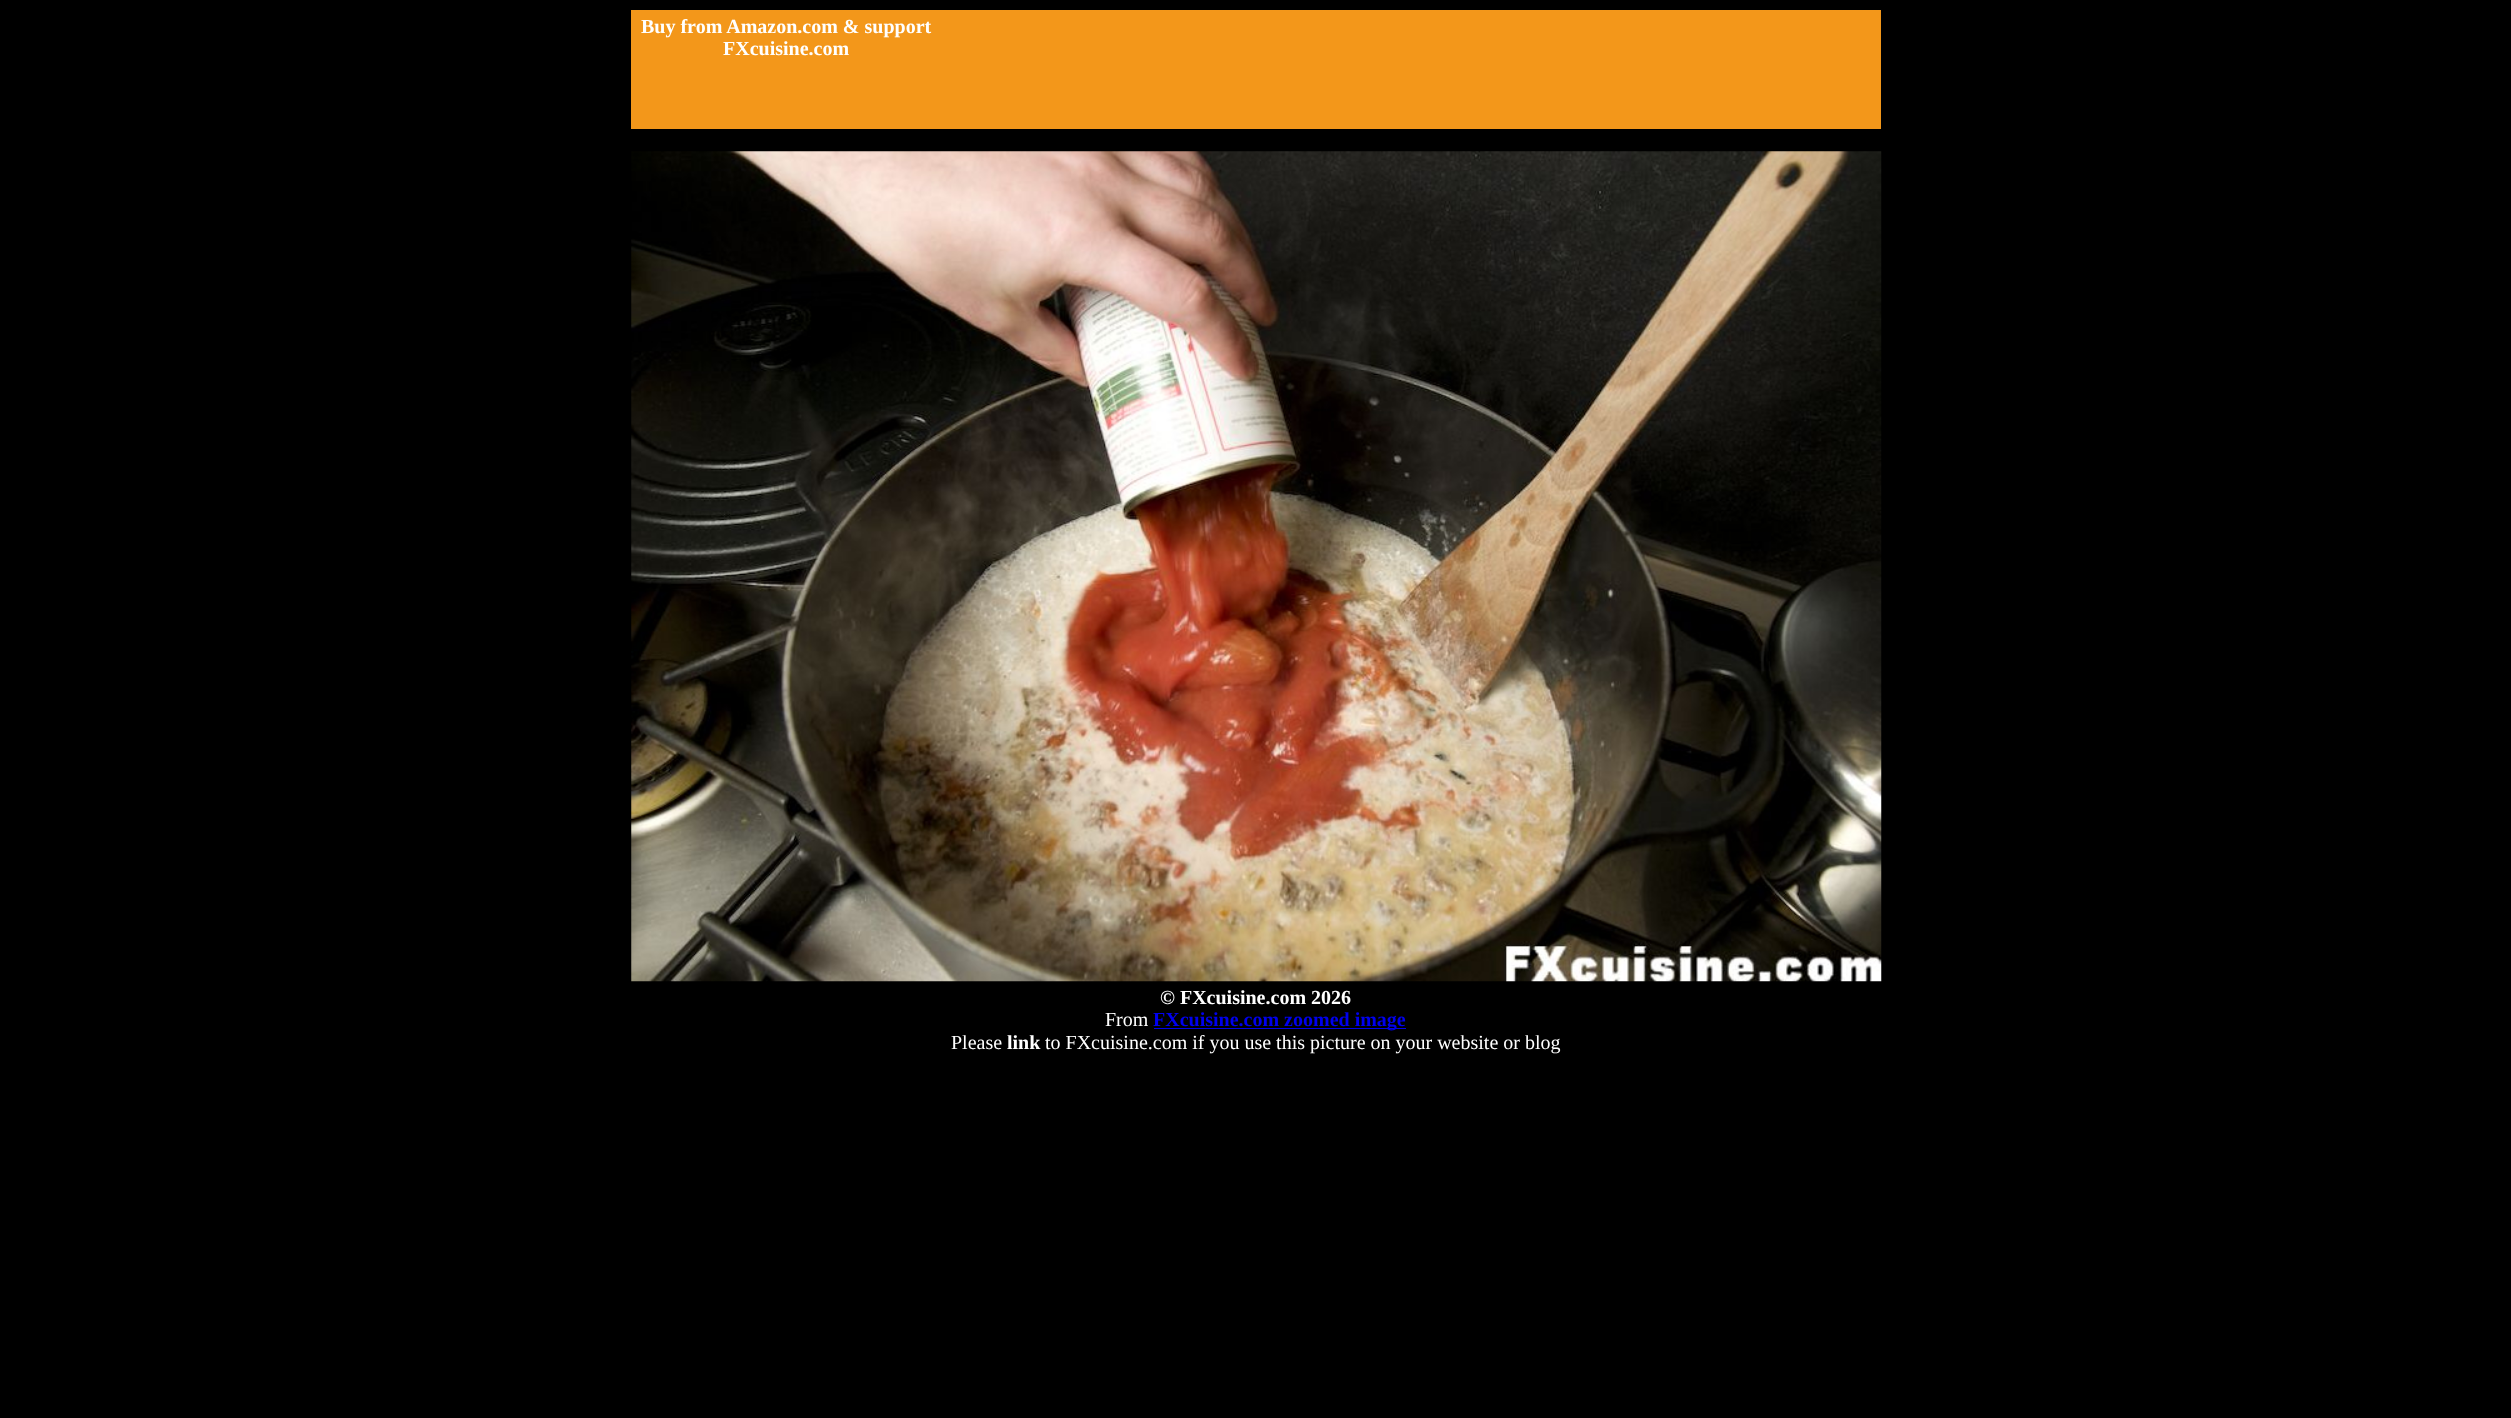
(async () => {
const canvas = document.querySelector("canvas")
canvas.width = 2511
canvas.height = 1418
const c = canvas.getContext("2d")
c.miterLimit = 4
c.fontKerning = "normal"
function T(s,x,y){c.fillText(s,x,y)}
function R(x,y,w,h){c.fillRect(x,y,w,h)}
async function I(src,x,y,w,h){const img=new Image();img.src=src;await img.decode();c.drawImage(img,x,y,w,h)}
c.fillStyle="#000"
R(0,0,2511,1418)
c.fillStyle="#f3971a"
R(631,10,1250,119)
c.font="bold 20px Liberation Serif"
c.fillStyle="#fff"
T("Buy from Amazon.com & support",641,33)
T("FXcuisine.com",723,55)
await I("1.png",631,151,1251,831)
T("© FXcuisine.com 2026",1160,1004)
c.font="20px Liberation Serif"
T("From",1105,1026)
c.fillStyle="#00e"
R(1154,1028,252,1)
c.font="bold 20px Liberation Serif"
T("FXcuisine.com zoomed image",1153,1026)
c.font="20px Liberation Serif"
c.fillStyle="#fff"
T("Please",951,1049)
c.font="bold 20px Liberation Serif"
T("link",1007,1049)
c.font="20px Liberation Serif"
T("to FXcuisine.com if you use this picture on your website or blog",1045,1049)
})()
